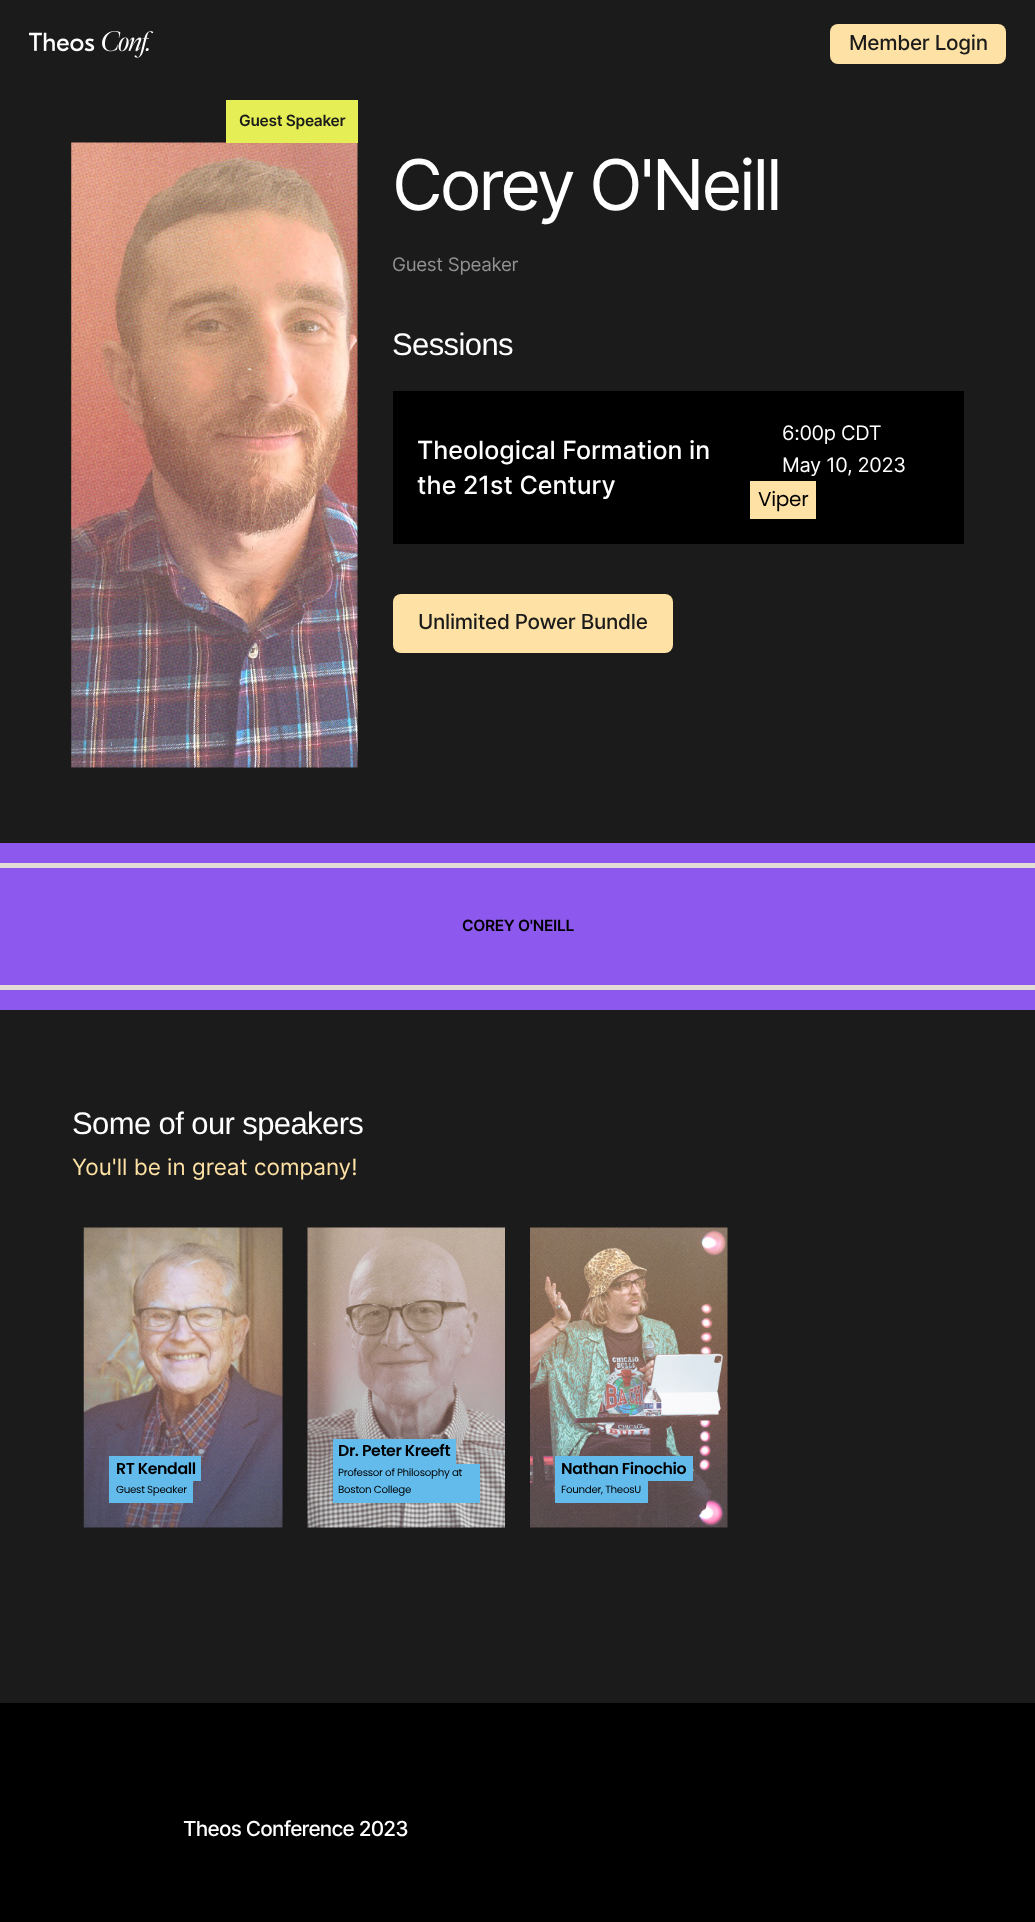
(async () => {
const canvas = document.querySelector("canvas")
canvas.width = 1035
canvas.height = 1922
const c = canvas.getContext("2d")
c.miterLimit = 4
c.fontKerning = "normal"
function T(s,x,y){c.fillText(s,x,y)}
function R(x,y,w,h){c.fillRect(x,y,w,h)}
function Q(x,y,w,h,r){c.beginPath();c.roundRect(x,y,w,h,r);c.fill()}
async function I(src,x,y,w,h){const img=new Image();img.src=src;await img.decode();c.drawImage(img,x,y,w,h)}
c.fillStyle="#1b1b1b"
R(0,0,1035,1922)
await I("1.png",29,31,125,27)
c.fillStyle="#fee1a4"
Q(830,24,176,40,8)
c.letterSpacing="-0.3px"
c.font="500 20.75px Inter"
c.fillStyle="#1b1b1b"
T("Member Login",849,50)
await I("2.png",71,142,287,626)
c.fillStyle="#e5ef55"
R(226,100,132,43)
c.font="600 15.5px Inter"
c.fillStyle="#1b1b1b"
T("Guest Speaker",239,126)
c.letterSpacing="-3.1px"
c.font="70px Inter"
c.fillStyle="#fff"
T("Corey O'Neill",392,210)
c.letterSpacing="-0.3px"
c.font="18.75px Inter"
c.fillStyle="#919191"
T("Guest Speaker",392,271)
c.letterSpacing="-0.6px"
c.font="31px Liberation Sans"
c.fillStyle="#fff"
T("Sessions",392,355)
c.fillStyle="#000"
R(393,391,571,153)
c.letterSpacing="0px"
c.font="500 25px Inter"
c.fillStyle="#fff"
T("Theological Formation in",417,459)
T("the 21st Century",417,494)
c.letterSpacing="-0.3px"
c.font="20px Inter"
T("6:00p CDT",782,440)
T("May 10, 2023",782,472)
c.fillStyle="#fee1a4"
R(750,481,66,38)
c.font="20px Poppins"
c.fillStyle="#000"
T("Viper",758,506)
c.fillStyle="#fee1a4"
Q(393,594,280,59,8)
c.font="500 20.75px Inter"
c.fillStyle="#1b1b1b"
T("Unlimited Power Bundle",418,629)
c.fillStyle="#8c58ee"
R(0,843,1035,167)
c.fillStyle="#e3dcd4"
R(0,863,1035,5)
c.font="600 15.5px Inter"
c.fillStyle="#000"
T("COREY O'NEILL",462,931)
c.fillStyle="#e3dcd4"
R(0,985,1035,5)
c.letterSpacing="-0.6px"
c.font="31px Liberation Sans"
c.fillStyle="#fff"
T("Some of our speakers",72,1134)
c.letterSpacing="0px"
c.font="22.5px Inter"
c.fillStyle="#fee1a4"
T("You'll be in great company!",72,1175)
await I("3.png",83,1227,200,301)
c.fillStyle="#63bbec"
R(109,1456,92,25)
c.letterSpacing="-0.4px"
c.font="600 15.75px Poppins"
c.fillStyle="#000"
T("RT Kendall",116,1474)
c.fillStyle="#63bbec"
R(109,1481,84,22)
c.letterSpacing="-0.3px"
c.font="10.3px Poppins"
c.fillStyle="#000"
T("Guest Speaker",116,1493)
await I("4.png",307,1227,198,301)
c.fillStyle="#63bbec"
R(333,1439,123,25)
c.letterSpacing="-0.4px"
c.font="600 15.75px Poppins"
c.fillStyle="#000"
T("Dr. Peter Kreeft",338,1456)
c.fillStyle="#63bbec"
R(333,1464,147,39)
c.letterSpacing="-0.3px"
c.font="10.3px Poppins"
c.fillStyle="#000"
T("Professor of Philosophy at",338,1476)
T("Boston College",338,1493)
await I("5.png",530,1227,198,301)
c.fillStyle="#63bbec"
R(555,1456,138,25)
c.letterSpacing="-0.4px"
c.font="600 15.75px Poppins"
c.fillStyle="#000"
T("Nathan Finochio",561,1474)
c.fillStyle="#63bbec"
R(555,1481,93,22)
c.letterSpacing="-0.3px"
c.font="10.3px Poppins"
c.fillStyle="#000"
T("Founder, TheosU",561,1493)
R(0,1703,1035,219)
c.letterSpacing="-0.75px"
c.font="500 20.75px Inter"
c.fillStyle="#fff"
T("Theos Conference 2023",183,1836)
})()
